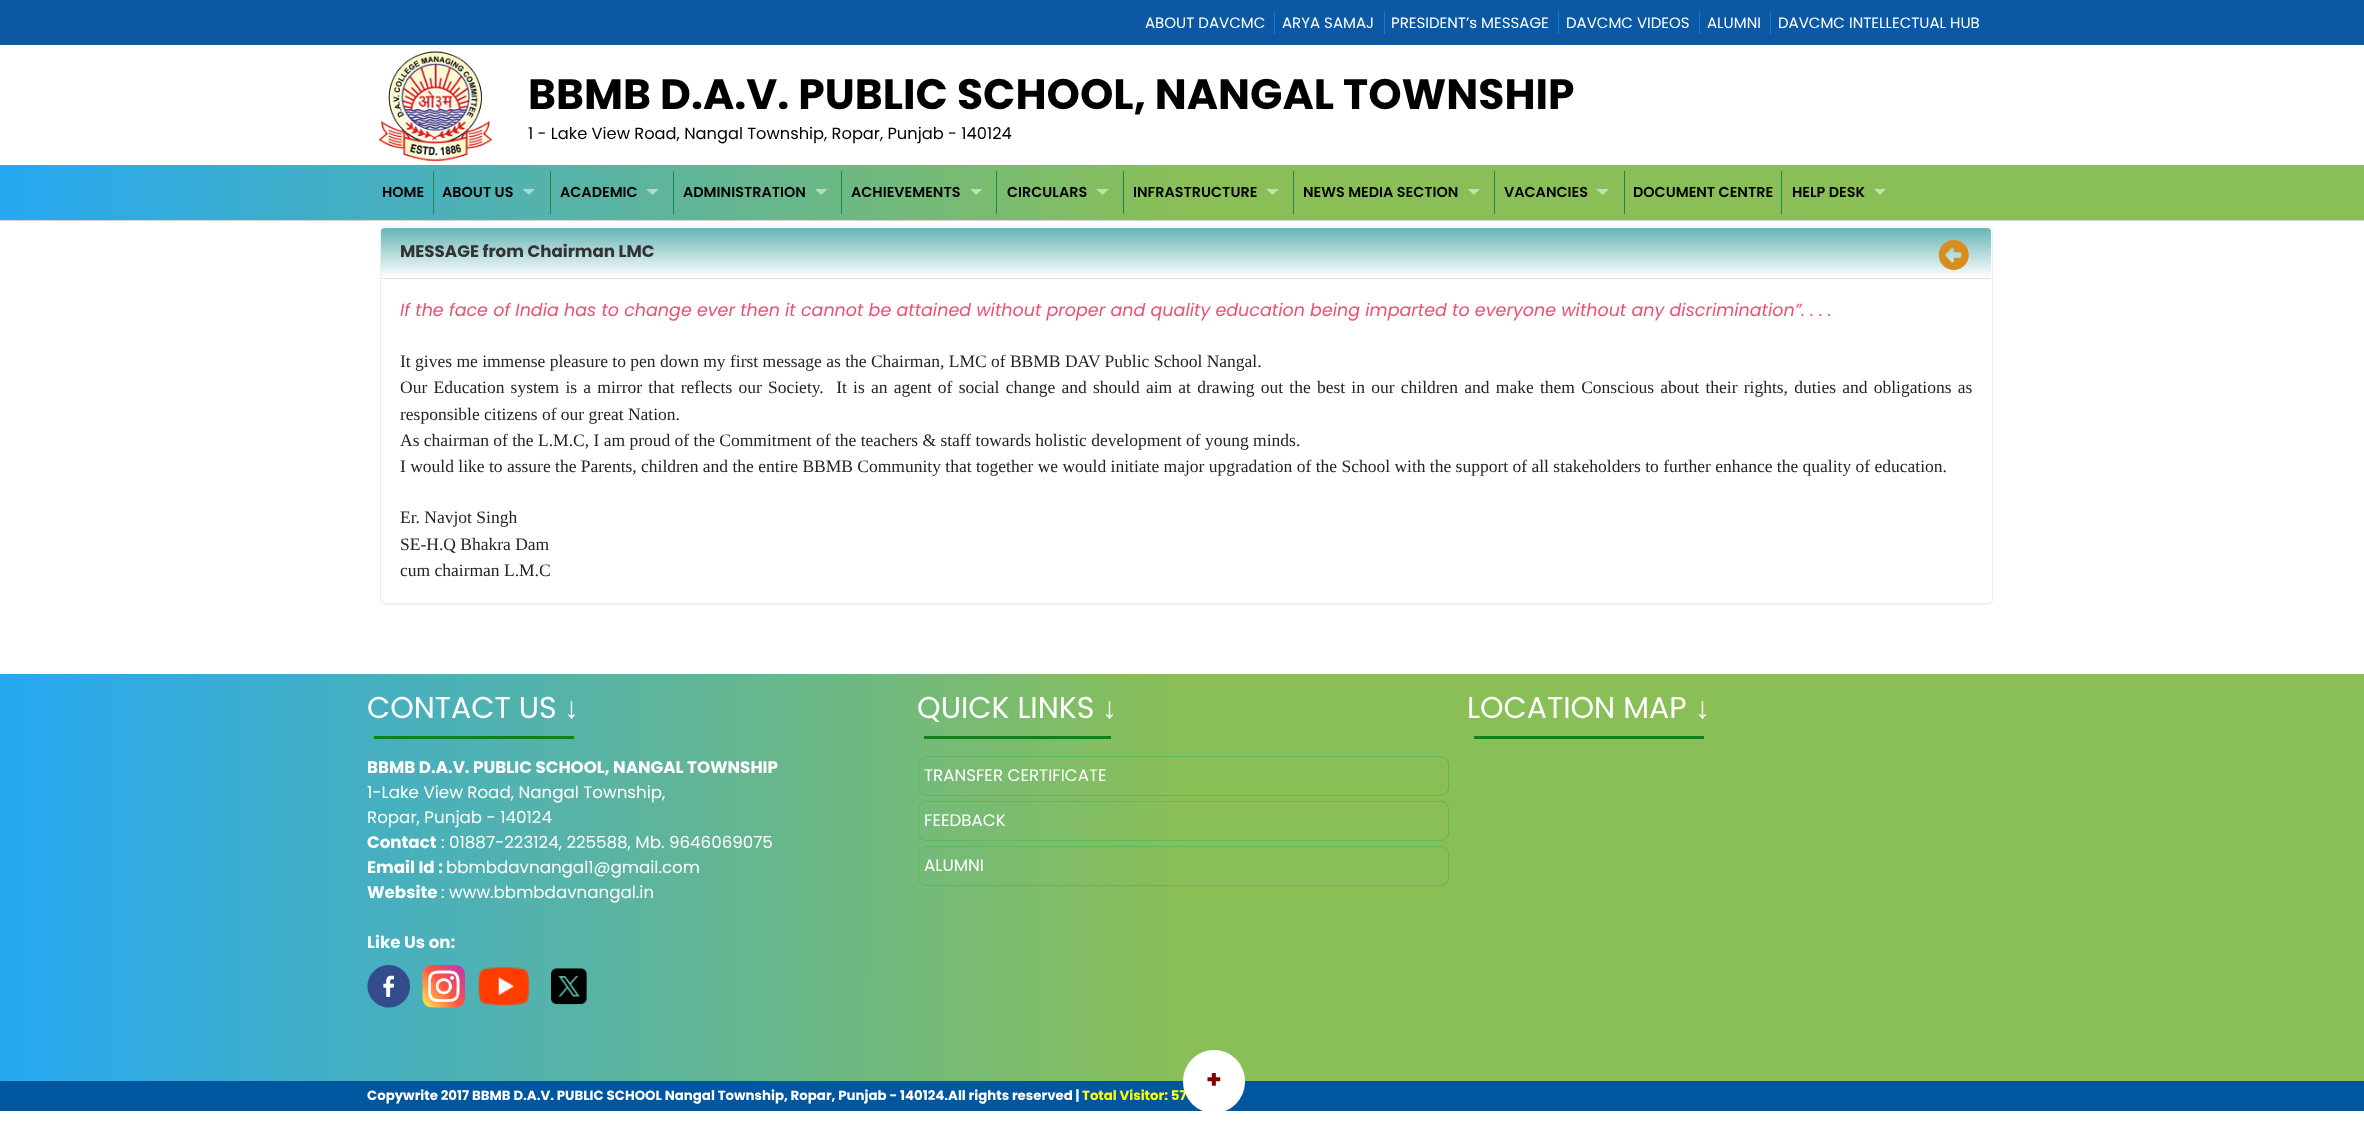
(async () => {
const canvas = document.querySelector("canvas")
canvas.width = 2364
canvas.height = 1125
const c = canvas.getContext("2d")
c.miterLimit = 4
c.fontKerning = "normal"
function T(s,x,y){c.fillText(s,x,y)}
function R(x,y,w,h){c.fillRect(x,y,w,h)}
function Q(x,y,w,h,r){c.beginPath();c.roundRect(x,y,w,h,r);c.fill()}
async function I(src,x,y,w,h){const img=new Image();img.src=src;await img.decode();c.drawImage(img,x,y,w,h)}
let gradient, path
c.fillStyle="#fff"
R(0,0,2364,1125)
c.fillStyle="#0c58a2"
R(0,0,2364,45)
c.fillStyle="#087ae1"
R(1274,11,1,23)
c.font="15px Poppins"
c.fillStyle="#fff"
T("ABOUT DAVCMC",1145,28)
c.fillStyle="#087ae1"
R(1384,11,1,23)
c.fillStyle="#fff"
T("ARYA SAMAJ",1282,28)
c.fillStyle="#087ae1"
R(1558,11,1,23)
c.fillStyle="#fff"
T("PRESIDENT’s MESSAGE",1391,28)
c.fillStyle="#087ae1"
R(1699,11,1,23)
c.fillStyle="#fff"
T("DAVCMC VIDEOS",1566,28)
c.fillStyle="#087ae1"
R(1770,11,1,23)
c.fillStyle="#fff"
T("ALUMNI",1707,28)
T("DAVCMC INTELLECTUAL HUB",1778,28)
await I("1.png",378,51,115,111)
c.font="bold 42.5px Poppins"
c.fillStyle="#000"
T("BBMB D.A.V. PUBLIC SCHOOL, NANGAL TOWNSHIP",528,109)
c.font="16.25px Poppins"
T("1 - Lake View Road, Nangal Township, Ropar, Punjab - 140124",528,139)
gradient = c.createLinearGradient(0,193,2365,192)
gradient.addColorStop(0,"#26a8f2")
gradient.addColorStop(.5,"#8abf57")
c.fillStyle = gradient
R(0,165,2364,55)
c.fillStyle="#d3d3d4"
R(0,220,2364,1)
c.fillStyle="#198754"
R(433,171,1,43)
c.font="600 14.4px Poppins"
c.fillStyle="#000"
T("HOME",382,197)
c.fillStyle="#198754"
R(550,171,1,43)
c.fillStyle="#000"
T("ABOUT US",442,197)
c.fillStyle="#a9d9d6"
path = new Path2D("M522.5 189h12.5l-6 6z")
c.fill(path)
c.fillStyle="#198754"
R(673,171,1,43)
c.fillStyle="#000"
T("ACADEMIC",560,197)
c.fillStyle="#aedace"
path = new Path2D("M646 189h13l-6.5 6z")
c.fill(path)
c.fillStyle="#198754"
R(841,171,1,43)
c.fillStyle="#000"
T("ADMINISTRATION",683,197)
c.fillStyle="#b5dcc3"
path = new Path2D("M815 189h12.5l-6.5 6z")
c.fill(path)
c.fillStyle="#198754"
R(996,171,1,43)
c.fillStyle="#000"
T("ACHIEVEMENTS",851,197)
c.fillStyle="#bcddb9"
path = new Path2D("M970 189h12.5l-6.5 6z")
c.fill(path)
c.fillStyle="#198754"
R(1123,171,1,43)
c.fillStyle="#000"
T("CIRCULARS",1007,197)
c.fillStyle="#c1deb0"
path = new Path2D("M1096 189h13l-6.5 6z")
c.fill(path)
c.fillStyle="#198754"
R(1293,171,1,43)
c.fillStyle="#000"
T("INFRASTRUCTURE",1133,197)
c.fillStyle="#c5dfab"
path = new Path2D("M1266 189h13l-6.5 6z")
c.fill(path)
c.fillStyle="#198754"
R(1494,171,1,43)
c.fillStyle="#000"
T("NEWS MEDIA SECTION",1303,197)
c.fillStyle="#c5dfab"
path = new Path2D("M1467.5 189h12.5l-6 6z")
c.fill(path)
c.fillStyle="#198754"
R(1624,171,1,43)
c.fillStyle="#000"
T("VACANCIES",1504,197)
c.fillStyle="#c5dfab"
path = new Path2D("M1596 189h13l-6.5 6z")
c.fill(path)
c.fillStyle="#198754"
R(1781,171,1,43)
c.fillStyle="#000"
T("DOCUMENT CENTRE",1633,197)
T("HELP DESK",1792,197)
c.fillStyle="#c5dfab"
path = new Path2D("M1874 189h12l-6 6z")
c.fill(path)
c.fillStyle="#0000000d"
c.filter="blur(0.5px)"
c.beginPath()
c.roundRect(380,228,1613,377,5)
c.fill()
c.filter="none"
c.fillStyle="#fff"
c.beginPath()
c.roundRect(380.5,226.5,1612,377,4.5)
c.fill()
c.strokeStyle="#eee"
c.stroke()
gradient = c.createLinearGradient(1186,227,1186,278)
gradient.addColorStop(0,"#64b3b4")
gradient.addColorStop(1,"#fff")
c.fillStyle = gradient
c.beginPath()
c.roundRect(381,228,1610,50,[4,4,0,0])
c.fill()
c.fillStyle="#ddd"
R(381,278,1610,1)
c.font="bold 16.7px Poppins"
c.fillStyle="#333"
T("MESSAGE from Chairman LMC",400,257)
await I("2.png",1938,240,31,30)
c.font="italic 17.5px Poppins"
c.fillStyle="#f0506e"
T("If the face of India has to change ever then it cannot be attained without proper and quality education being imparted to everyone without any discrimination”. . . .",400,316)
c.font="17.5px Liberation Serif"
c.fillStyle="#212529"
T("It gives me immense pleasure to pen down my first message as the Chairman, LMC of BBMB DAV Public School Nangal.",400,367)
c.wordSpacing="1.85px"
T("Our Education system is a mirror that reflects our Society.  It is an agent of social change and should aim at drawing out the best in our children and make them Conscious about their rights, duties and obligations as",400,393)
c.wordSpacing="0px"
T("responsible citizens of our great Nation.",400,420)
T("As chairman of the L.M.C, I am proud of the Commitment of the teachers & staff towards holistic development of young minds.",400,446)
T("I would like to assure the Parents, children and the entire BBMB Community that together we would initiate major upgradation of the School with the support of all stakeholders to further enhance the quality of education.",400,472)
T("Er. Navjot Singh",400,523)
T("SE-H.Q Bhakra Dam",400,550)
T("сum chairman L.M.C",400,576)
gradient = c.createLinearGradient(0,878,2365,877)
gradient.addColorStop(0,"#26a8f2")
gradient.addColorStop(.5,"#8abf57")
c.fillStyle = gradient
R(0,674,2364,407)
c.font="30px Poppins"
c.fillStyle="#fff"
T("CONTACT US",367,718)
c.font="30px Liberation Sans"
T("↓",564,718)
c.fillStyle="#0e801c"
R(374,736,200,3)
c.font="bold 16.7px Poppins"
c.fillStyle="#fff"
T("BBMB D.A.V. PUBLIC SCHOOL, NANGAL TOWNSHIP",367,773)
c.font="16.7px Poppins"
T("1-Lake View Road, Nangal Township,",367,798)
T("Ropar, Punjab - 140124",367,823)
c.font="bold 16.7px Poppins"
T("Contact",367,848)
c.font="16.7px Poppins"
T(": 01887-223124, 225588, Mb. 9646069075",441,848)
c.font="bold 16.7px Poppins"
T("Email Id :",367,873)
c.font="16.7px Poppins"
T("bbmbdavnangal1@gmail.com",446,873)
c.font="bold 16.7px Poppins"
T("Website",367,898)
c.font="16.7px Poppins"
T(": www.bbmbdavnangal.in",441,898)
c.font="bold 16.7px Poppins"
c.fillStyle="#f8f8ff"
T("Like Us on:",367,948)
await I("3.png",367,965,43,43)
await I("4.png",422,965,43,43)
await I("5.png",478,967,52,39)
await I("6.png",551,968,36,37)
c.font="30px Poppins"
c.fillStyle="#fff"
T("QUICK LINKS",917,718)
c.font="30px Liberation Sans"
T("↓",1102,718)
c.fillStyle="#0e801c"
R(924,736,187,3)
c.beginPath()
c.roundRect(918.5,756.5,530,39,7.5)
c.strokeStyle="#5cb85c"
c.stroke()
c.font="16.7px Poppins"
c.fillStyle="#fff"
T("TRANSFER CERTIFICATE",924,781)
c.beginPath()
c.roundRect(918.5,801.5,530,39,7.5)
c.stroke()
T("FEEDBACK",924,826)
c.beginPath()
c.roundRect(918.5,846.5,530,39,7.5)
c.stroke()
T("ALUMNI",924,871)
c.font="30px Poppins"
T("LOCATION MAP",1467,718)
c.font="30px Liberation Sans"
T("↓",1695,718)
c.fillStyle="#0e801c"
R(1474,736,230,3)
c.fillStyle="#00579f"
R(0,1081,2364,30)
c.font="bold 13.33px Poppins"
c.fillStyle="#ffff09"
T("Total Visitor: 57",1082,1100)
c.fillStyle="#fff"
Q(1183,1050,62,63,31)
c.font="bold 25px Poppins"
c.fillStyle="#800000"
T("+",1206,1088)
c.font="bold 13.33px Poppins"
c.fillStyle="#fff"
T("Copywrite 2017 BBMB D.A.V. PUBLIC SCHOOL Nangal Township, Ropar, Punjab - 140124.All rights reserved |",367,1100)
})()
